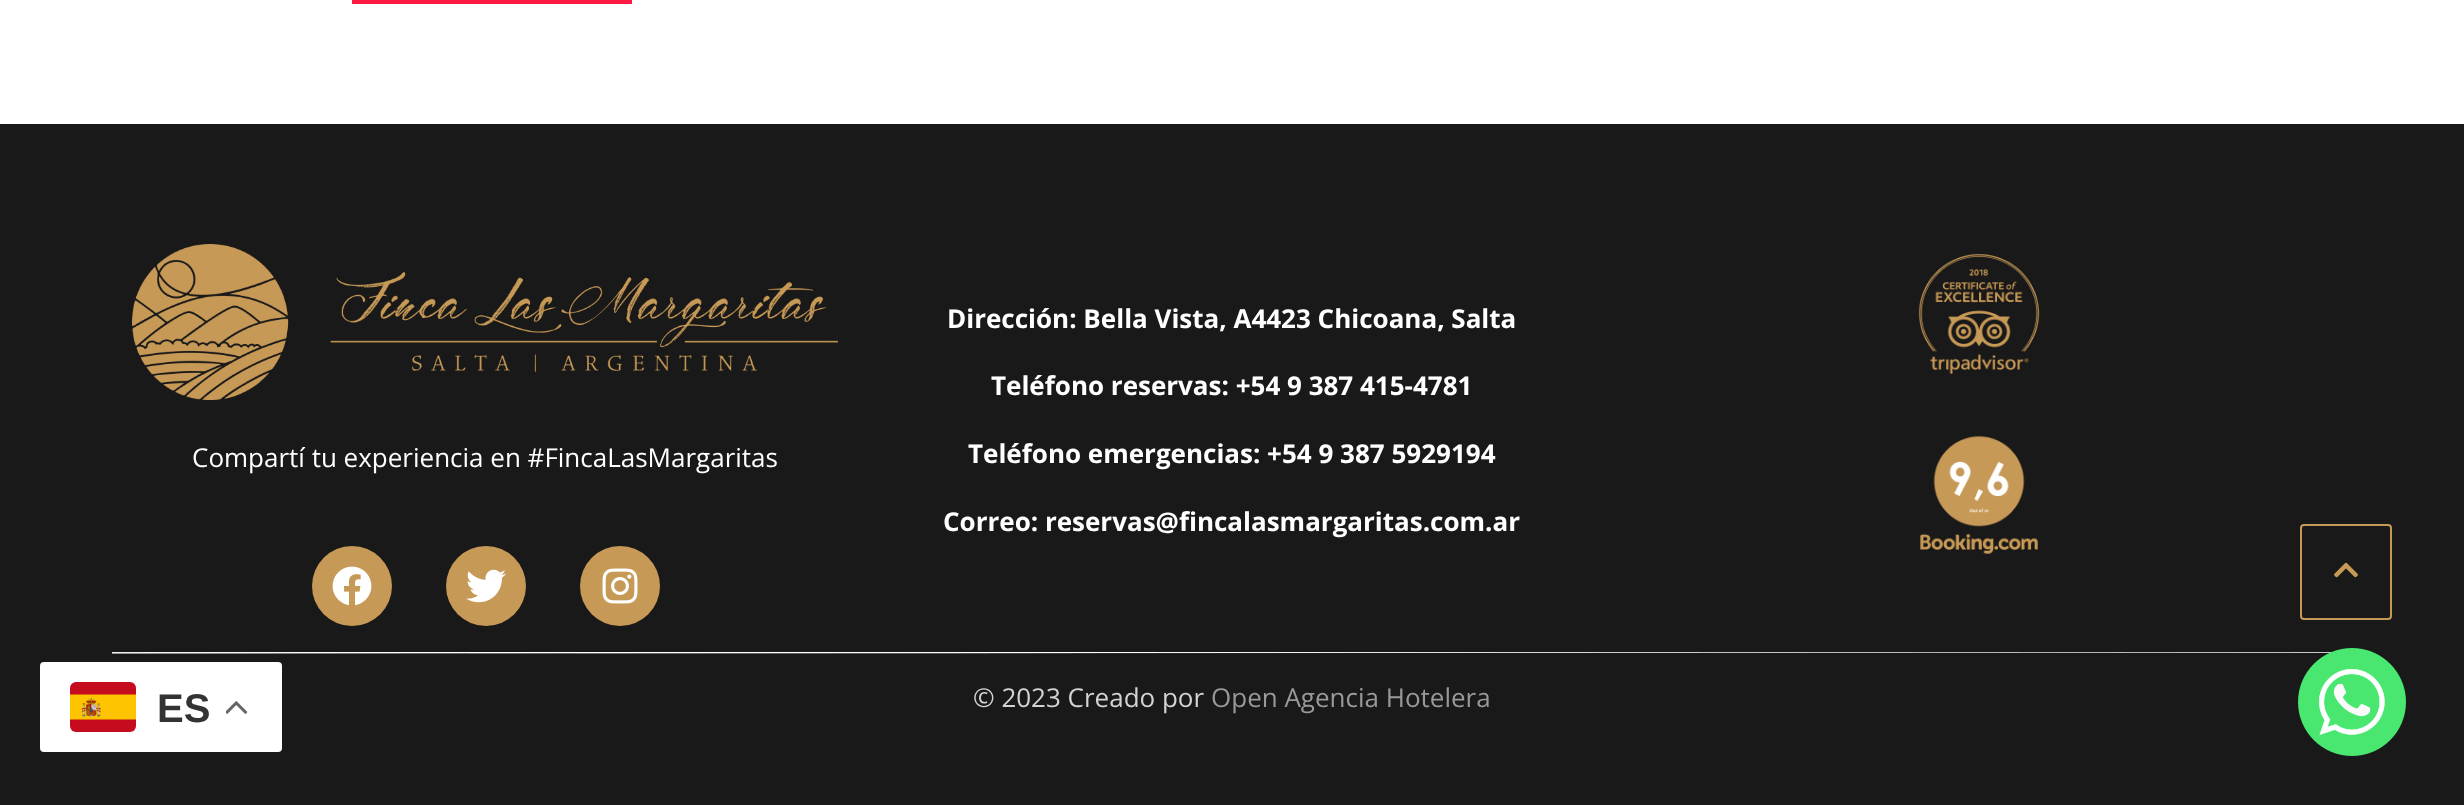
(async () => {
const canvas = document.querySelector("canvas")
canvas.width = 2464
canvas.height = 805
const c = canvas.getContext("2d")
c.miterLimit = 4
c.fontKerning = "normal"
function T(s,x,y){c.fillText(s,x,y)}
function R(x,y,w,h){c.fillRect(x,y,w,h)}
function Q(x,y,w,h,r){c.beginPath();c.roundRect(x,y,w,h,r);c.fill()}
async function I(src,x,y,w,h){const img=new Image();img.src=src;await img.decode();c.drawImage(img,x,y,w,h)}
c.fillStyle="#fff"
R(0,0,2464,805)
c.fillStyle="#ff1a44"
R(352,0,280,4)
c.fillStyle="#191919"
R(0,124,2464,681)
c.fillStyle="#fff"
Q(40,662,242,90,4)
await I("1.png",70,682,66,50)
c.font="bold 40px Liberation Sans"
c.fillStyle="#333"
T("ES",157,722)
await I("2.png",226,701,22,13)
await I("3.png",132,244,706,156)
c.font="26px Open Sans"
c.fillStyle="#fff"
T("Compartí tu experiencia en #FincaLasMargaritas",192,467)
c.fillStyle="#c79956"
c.beginPath()
c.arc(352,586,40,0,7)
c.fill()
await I("4.png",332,566,40,40)
c.beginPath()
c.arc(486,586,40,0,7)
c.fill()
await I("5.png",466,569,40,34)
c.beginPath()
c.arc(620,586,40,0,7)
c.fill()
await I("6.png",602,568,36,36)
c.font="bold 26px Open Sans"
c.fillStyle="#fff"
T("Dirección: Bella Vista, A4423 Chicoana, Salta",947,328)
T("Teléfono reservas: +54 9 387 415-4781",991,395)
T("Teléfono emergencias: +54 9 387 5929194",968,463)
T("Correo: reservas@fincalasmargaritas.com.ar",943,531)
await I("7.png",1918,254,122,120)
await I("8.png",1920,436,118,118)
await I("9.png",112,652,2220,2)
c.font="26px Open Sans"
c.fillStyle="#d3d3d3"
T("© 2023 Creado por",973,707)
c.fillStyle="#999"
T("Open Agencia Hotelera",1211,707)
c.beginPath()
c.roundRect(2301,525,90,94,3)
c.strokeStyle="#c79956"
c.lineWidth=2
c.stroke()
await I("10.png",2334,562,24,16)
await I("11.png",2298,648,108,108)
})()
